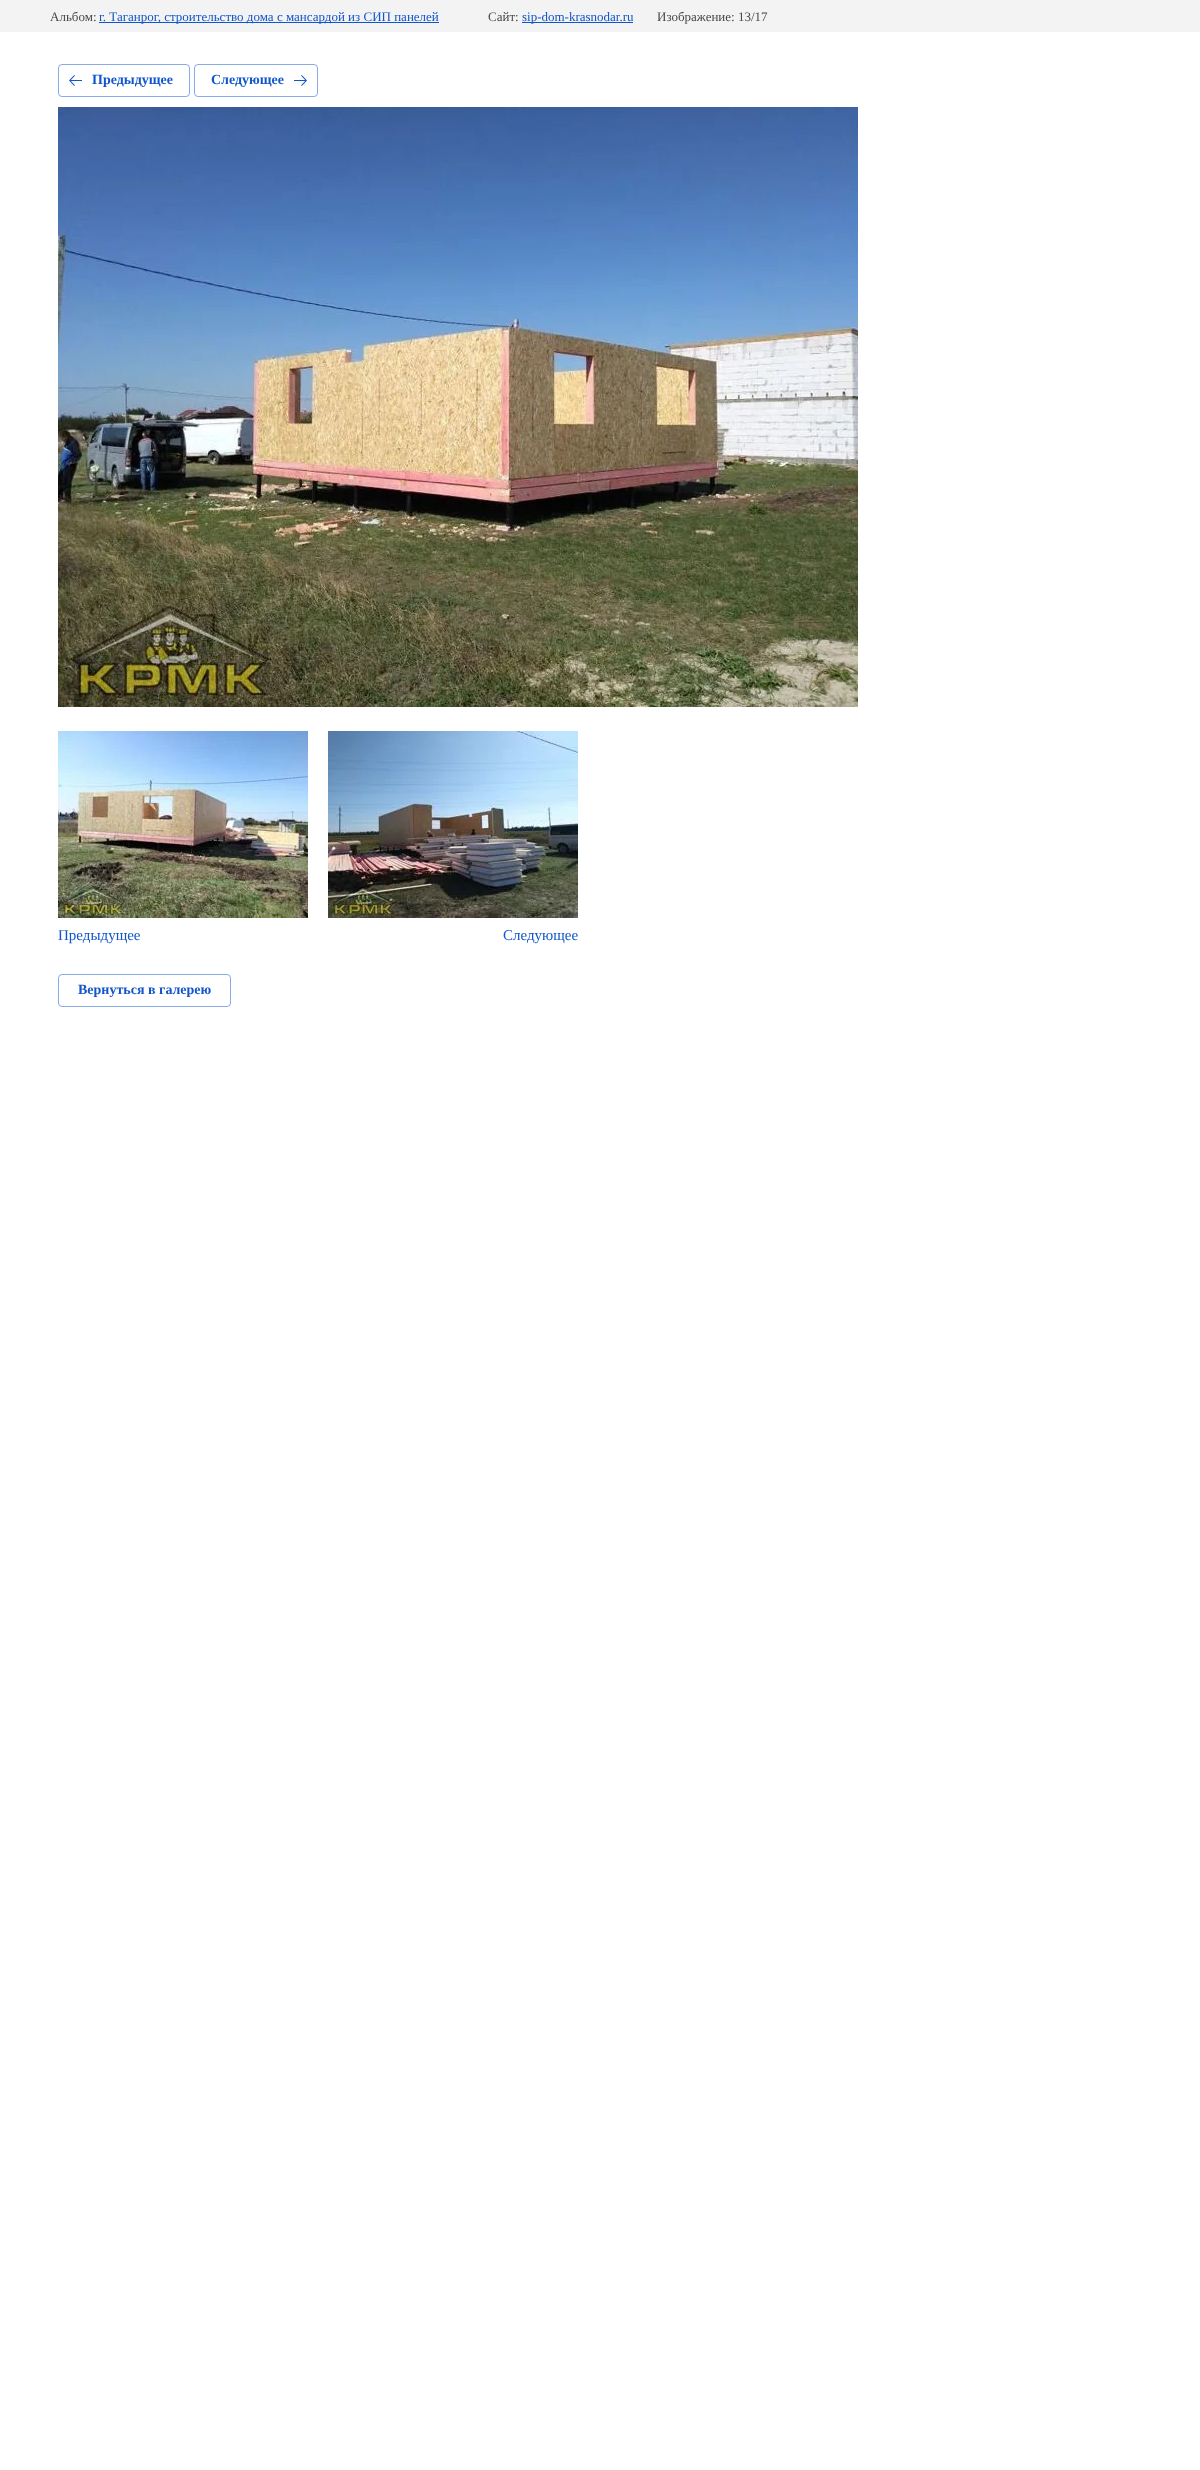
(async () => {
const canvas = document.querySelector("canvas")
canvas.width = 1200
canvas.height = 2470
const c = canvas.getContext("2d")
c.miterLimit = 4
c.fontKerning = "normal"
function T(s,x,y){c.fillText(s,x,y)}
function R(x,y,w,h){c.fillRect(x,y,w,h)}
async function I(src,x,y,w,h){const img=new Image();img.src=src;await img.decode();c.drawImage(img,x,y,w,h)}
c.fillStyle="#fff"
R(0,0,1200,2470)
c.fillStyle="#f3f3f3"
R(0,0,1200,32)
c.font="13px Liberation Serif"
c.fillStyle="#484848"
T("Альбом:",50,21)
c.fillStyle="#15c"
R(99,22,340,1)
T("г. Таганрог, строительство дома с мансардой из СИП панелей",99,21)
c.fillStyle="#484848"
T("Сайт:",488,21)
c.fillStyle="#15c"
R(522,22,111,1)
T("sip-dom-krasnodar.ru",522,21)
c.fillStyle="#484848"
T("Изображение: 13/17",657,21)
c.beginPath()
c.roundRect(58.5,64.5,131,32,3.5)
c.strokeStyle="#88aae6"
c.stroke()
await I("1.png",69,75,13,11)
c.font="bold 14px Liberation Serif"
c.fillStyle="#15c"
T("Предыдущее",92,84)
c.beginPath()
c.roundRect(194.5,64.5,123,32,3.5)
c.stroke()
T("Следующее",211,84)
await I("2.png",294,75,13,11)
await I("3.png",58,107,800,600)
await I("4.png",58,731,250,187)
c.font="15px Liberation Serif"
T("Предыдущее",58,940)
await I("5.png",328,731,250,187)
T("Следующее",503,940)
c.beginPath()
c.roundRect(58.5,974.5,172,32,3.5)
c.stroke()
c.font="bold 14px Liberation Serif"
T("Вернуться в галерею",78,994)
})()
